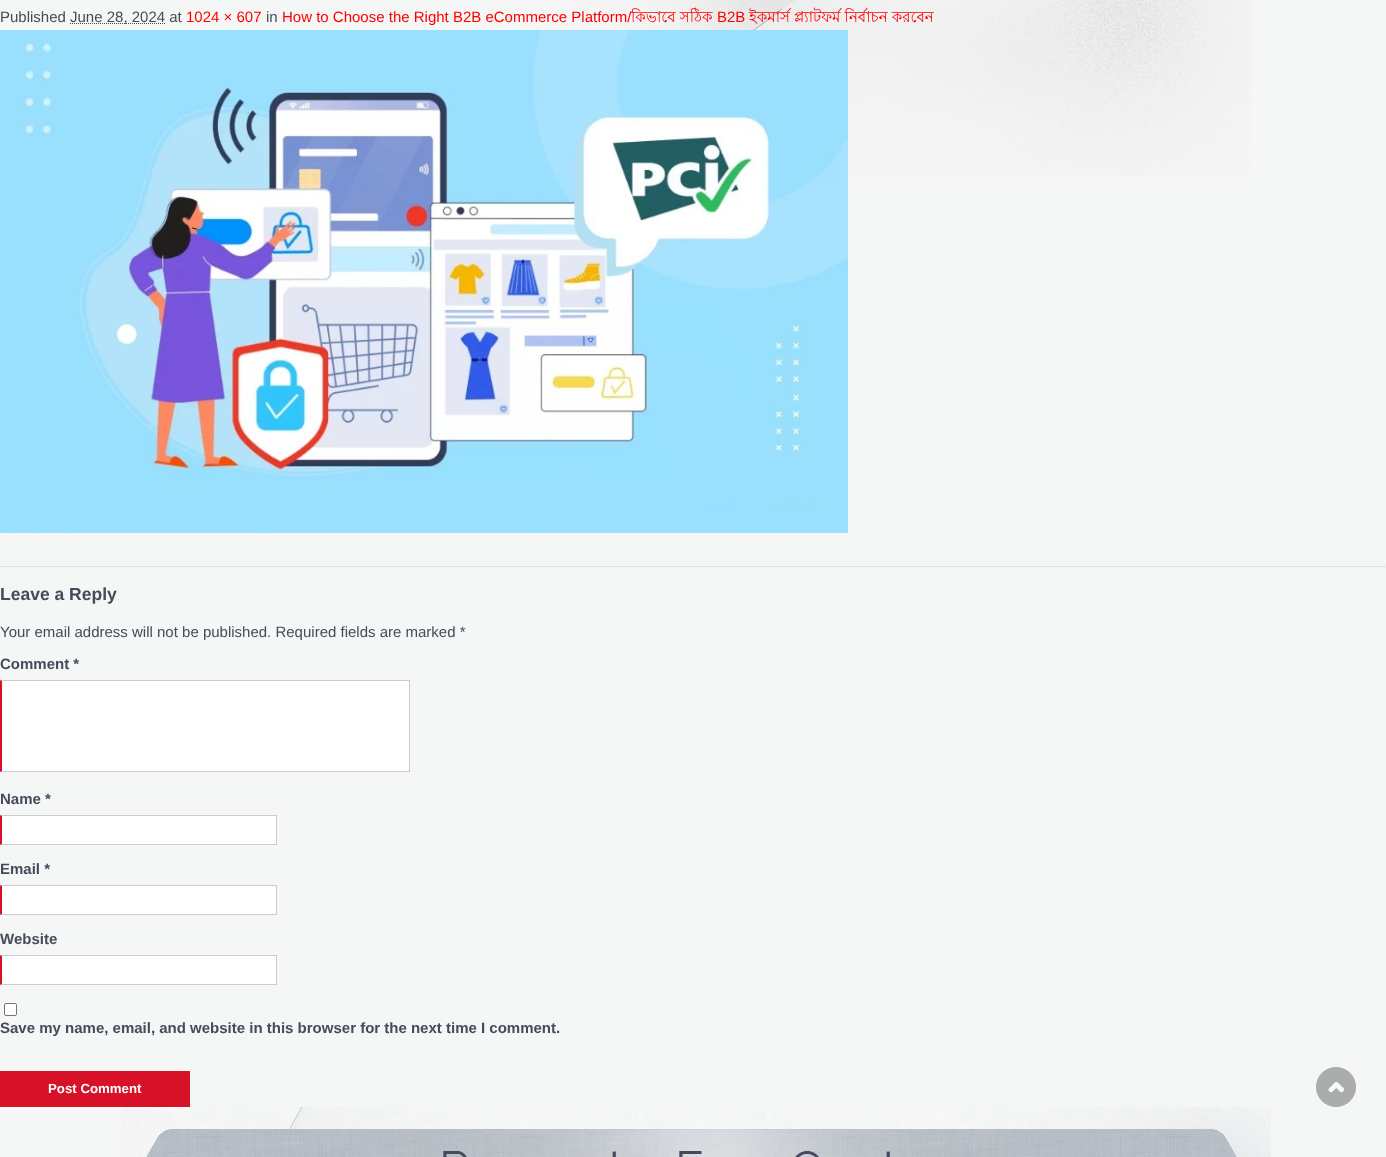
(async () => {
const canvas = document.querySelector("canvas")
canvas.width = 1386
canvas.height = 1157
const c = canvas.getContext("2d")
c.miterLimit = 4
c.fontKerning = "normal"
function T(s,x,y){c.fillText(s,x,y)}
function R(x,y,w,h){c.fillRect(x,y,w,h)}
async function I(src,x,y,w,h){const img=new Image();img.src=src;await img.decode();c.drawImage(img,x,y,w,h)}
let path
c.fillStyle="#f5f6f6"
R(0,0,1386,1157)
await I("1.png",517,0,734,177)
c.font="15px Liberation Sans"
c.fillStyle="#474a59"
T("Published",0,22)
path = new Path2D("M70 23.5h95")
c.strokeStyle="#474a59"
c.setLineDash([1,1])
c.stroke(path)
T("June 28, 2024 at",70,22)
c.fillStyle="#f00"
T("1024 × 607",186,22)
c.fillStyle="#474a59"
T("in",266,22)
c.fillStyle="#f00"
T("How to Choose the Right B2B eCommerce Platform/",282,22)
c.font="15px Lohit Bengali"
T("কিভাবে সঠিক",631,22)
c.font="15px Liberation Sans"
T("B2B",717,22)
c.font="15px Lohit Bengali"
T("ইকমার্স প্ল্যাটফর্ম নির্বাচন করবেন",749,22)
await I("2.png",0,30,848,503)
path = new Path2D("M0 566.5h1386")
c.strokeStyle="#c9c9c9"
c.stroke(path)
c.font="bold 17.5px Liberation Sans"
c.fillStyle="#474a59"
T("Leave a Reply",0,600)
c.font="15px Liberation Sans"
T("Your email address will not be published. Required fields are marked *",0,637)
c.font="bold 15px Liberation Sans"
T("Comment *",0,669)
c.fillStyle="#fff"
R(2,681,407,90)
c.fillStyle="#ccc"
path = new Path2D("M0 680h410l-1 1h-407z")
c.fill(path)
R(409,680,1,92)
path = new Path2D("M410 772h-410l2-1h407z")
c.fill(path)
c.fillStyle="#d61128"
path = new Path2D("M0 772v-92l2 1v90z")
c.fill(path)
c.fillStyle="#474a59"
T("Name *",0,804)
c.fillStyle="#fff"
R(2,816,274,28)
c.fillStyle="#ccc"
path = new Path2D("M0 815h277l-1 1h-274z")
c.fill(path)
R(276,815,1,30)
path = new Path2D("M277 845h-277l2-1h274z")
c.fill(path)
c.fillStyle="#d61128"
path = new Path2D("M0 845v-30l2 1v28z")
c.fill(path)
c.fillStyle="#474a59"
T("Email *",0,874)
c.fillStyle="#fff"
R(2,886,274,28)
c.fillStyle="#ccc"
path = new Path2D("M0 885h277l-1 1h-274z")
c.fill(path)
R(276,885,1,30)
path = new Path2D("M277 915h-277l2-1h274z")
c.fill(path)
c.fillStyle="#d61128"
path = new Path2D("M0 915v-30l2 1v28z")
c.fill(path)
c.fillStyle="#474a59"
T("Website",0,944)
c.fillStyle="#fff"
R(2,956,274,28)
c.fillStyle="#ccc"
path = new Path2D("M0 955h277l-1 1h-274z")
c.fill(path)
R(276,955,1,30)
path = new Path2D("M277 985h-277l2-1h274z")
c.fill(path)
c.fillStyle="#d61128"
path = new Path2D("M0 985v-30l2 1v28z")
c.fill(path)
c.fillStyle="#fff"
c.beginPath()
c.roundRect(4.5,1003.5,12,12,1.5)
c.fill()
c.strokeStyle="#767676"
c.setLineDash([])
c.stroke()
c.fillStyle="#474a59"
T("Save my name, email, and website in this browser for the next time I comment.",0,1033)
c.fillStyle="#d61128"
R(0,1071,190,36)
c.font="bold 13.25px Liberation Sans"
c.fillStyle="#fff"
T("Post Comment",48,1093)
await I("3.png",122,1107,1149,50)
await I("4.png",1316,1067,40,40)
})()
